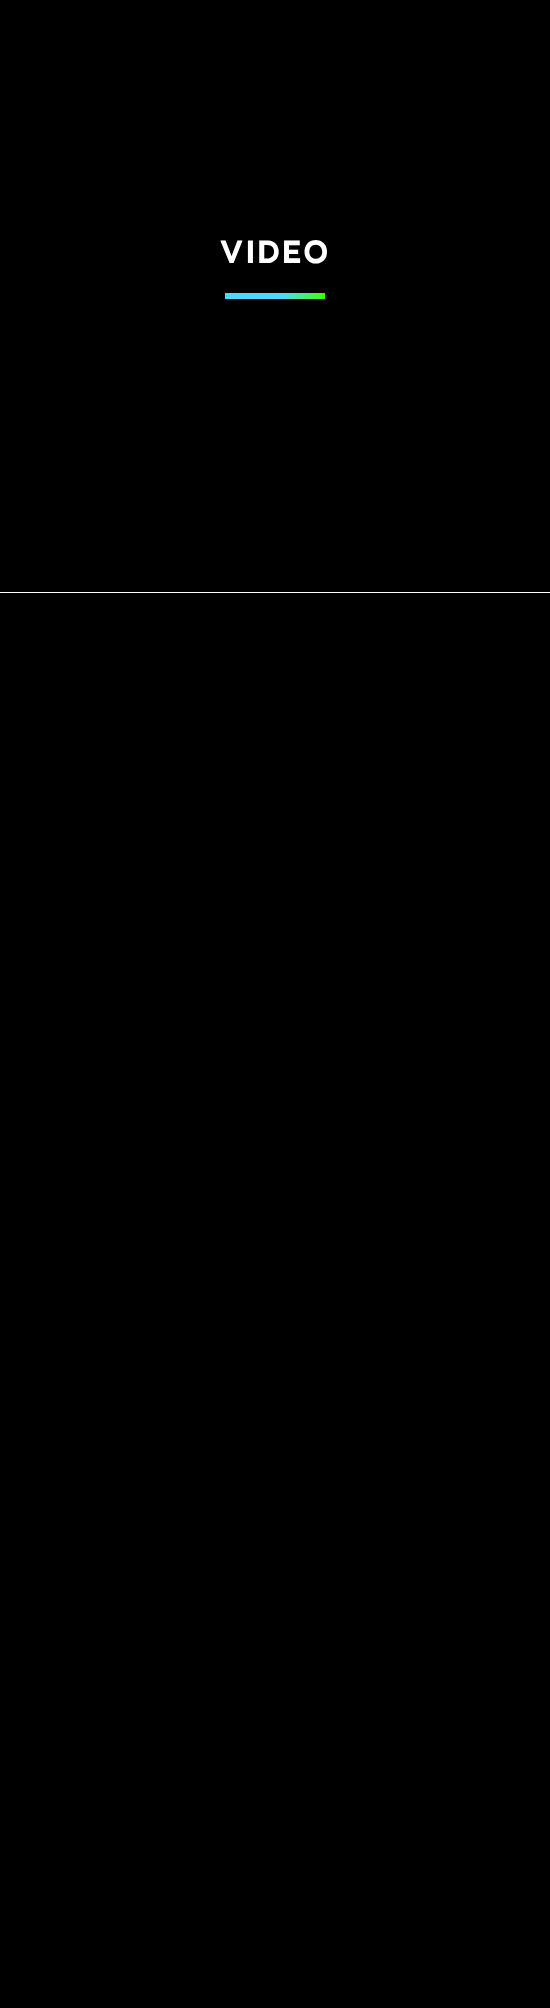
(async () => {
const canvas = document.querySelector("canvas")
canvas.width = 550
canvas.height = 2008
const c = canvas.getContext("2d")
c.miterLimit = 4
c.fontKerning = "normal"
function T(s,x,y){c.fillText(s,x,y)}
function R(x,y,w,h){c.fillRect(x,y,w,h)}
let gradient
c.fillStyle="#000"
R(0,0,550,2008)
c.letterSpacing="2px"
c.font="bold 32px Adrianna"
c.fillStyle="#fff"
T("VIDEO",220,263)
gradient = c.createLinearGradient(225,296,325,296)
gradient.addColorStop(0,"#4dd9ff")
gradient.addColorStop(.57,"#4dd9ff")
gradient.addColorStop(1,"#40ff00")
c.fillStyle = gradient
R(225,293,100,6)
c.fillStyle="#fff"
R(0,592,550,1)
})()
